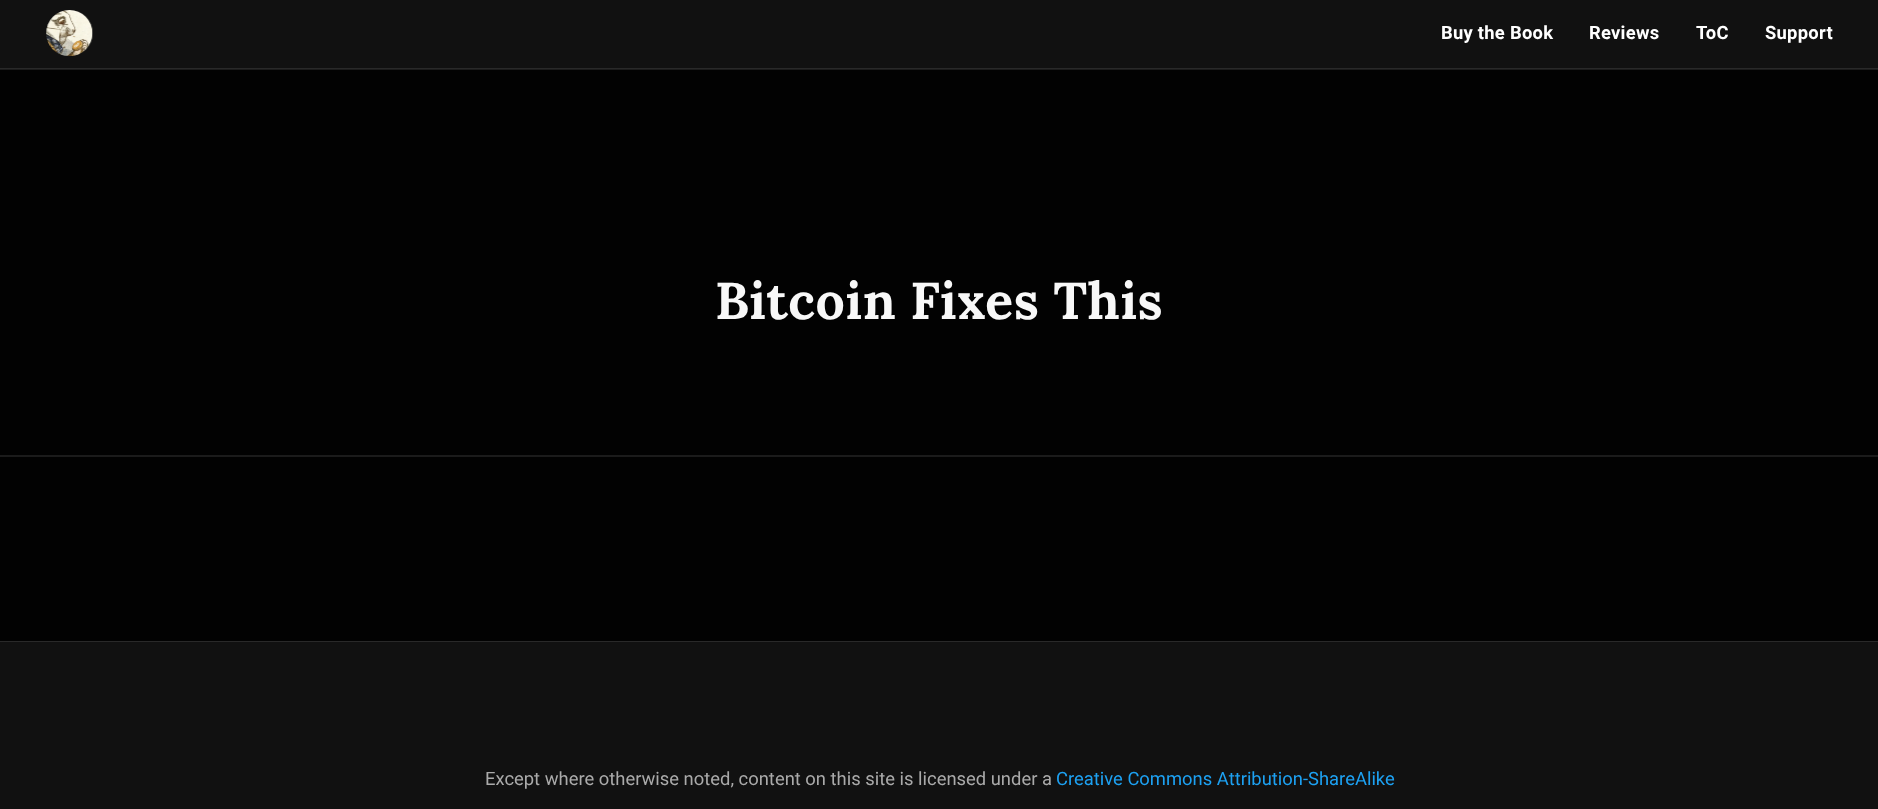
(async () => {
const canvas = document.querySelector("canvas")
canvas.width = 1878
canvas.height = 809
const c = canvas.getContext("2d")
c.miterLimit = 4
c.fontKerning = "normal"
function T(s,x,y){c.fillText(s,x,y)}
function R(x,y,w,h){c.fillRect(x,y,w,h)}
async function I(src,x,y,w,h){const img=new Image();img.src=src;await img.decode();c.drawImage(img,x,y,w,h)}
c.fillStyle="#020202"
R(0,0,1878,809)
c.fillStyle="#ffffff1a"
c.filter="blur(0.5px)"
c.beginPath()
c.rect(0,1,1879,69)
c.fill()
c.filter="none"
c.fillStyle="#111"
R(0,0,1878,68)
c.fillStyle="#292929"
R(0,68,1878,1)
await I("1.png",46,10,47,47)
c.letterSpacing="0.25px"
c.font="bold 18.4px Roboto"
c.fillStyle="#fff"
T("Buy the Book",1441,39)
T("Reviews",1589,39)
T("ToC",1696,39)
T("Support",1765,39)
c.fillStyle="#1b1b1b"
R(0,455,1878,2)
c.letterSpacing="0.5px"
c.font="bold 51.75px Lora"
c.fillStyle="#f8f8f8"
T("Bitcoin Fixes This",715,319)
c.fillStyle="#111"
R(0,642,1878,167)
c.fillStyle="#292929"
R(0,641,1878,1)
c.letterSpacing="0px"
c.font="18.4px Roboto"
c.fillStyle="#aaa"
T("Except where otherwise noted, content on this site is licensed under a",485,785)
c.fillStyle="#1da1f2"
T("Creative Commons Attribution-ShareAlike",1056,785)
})()
